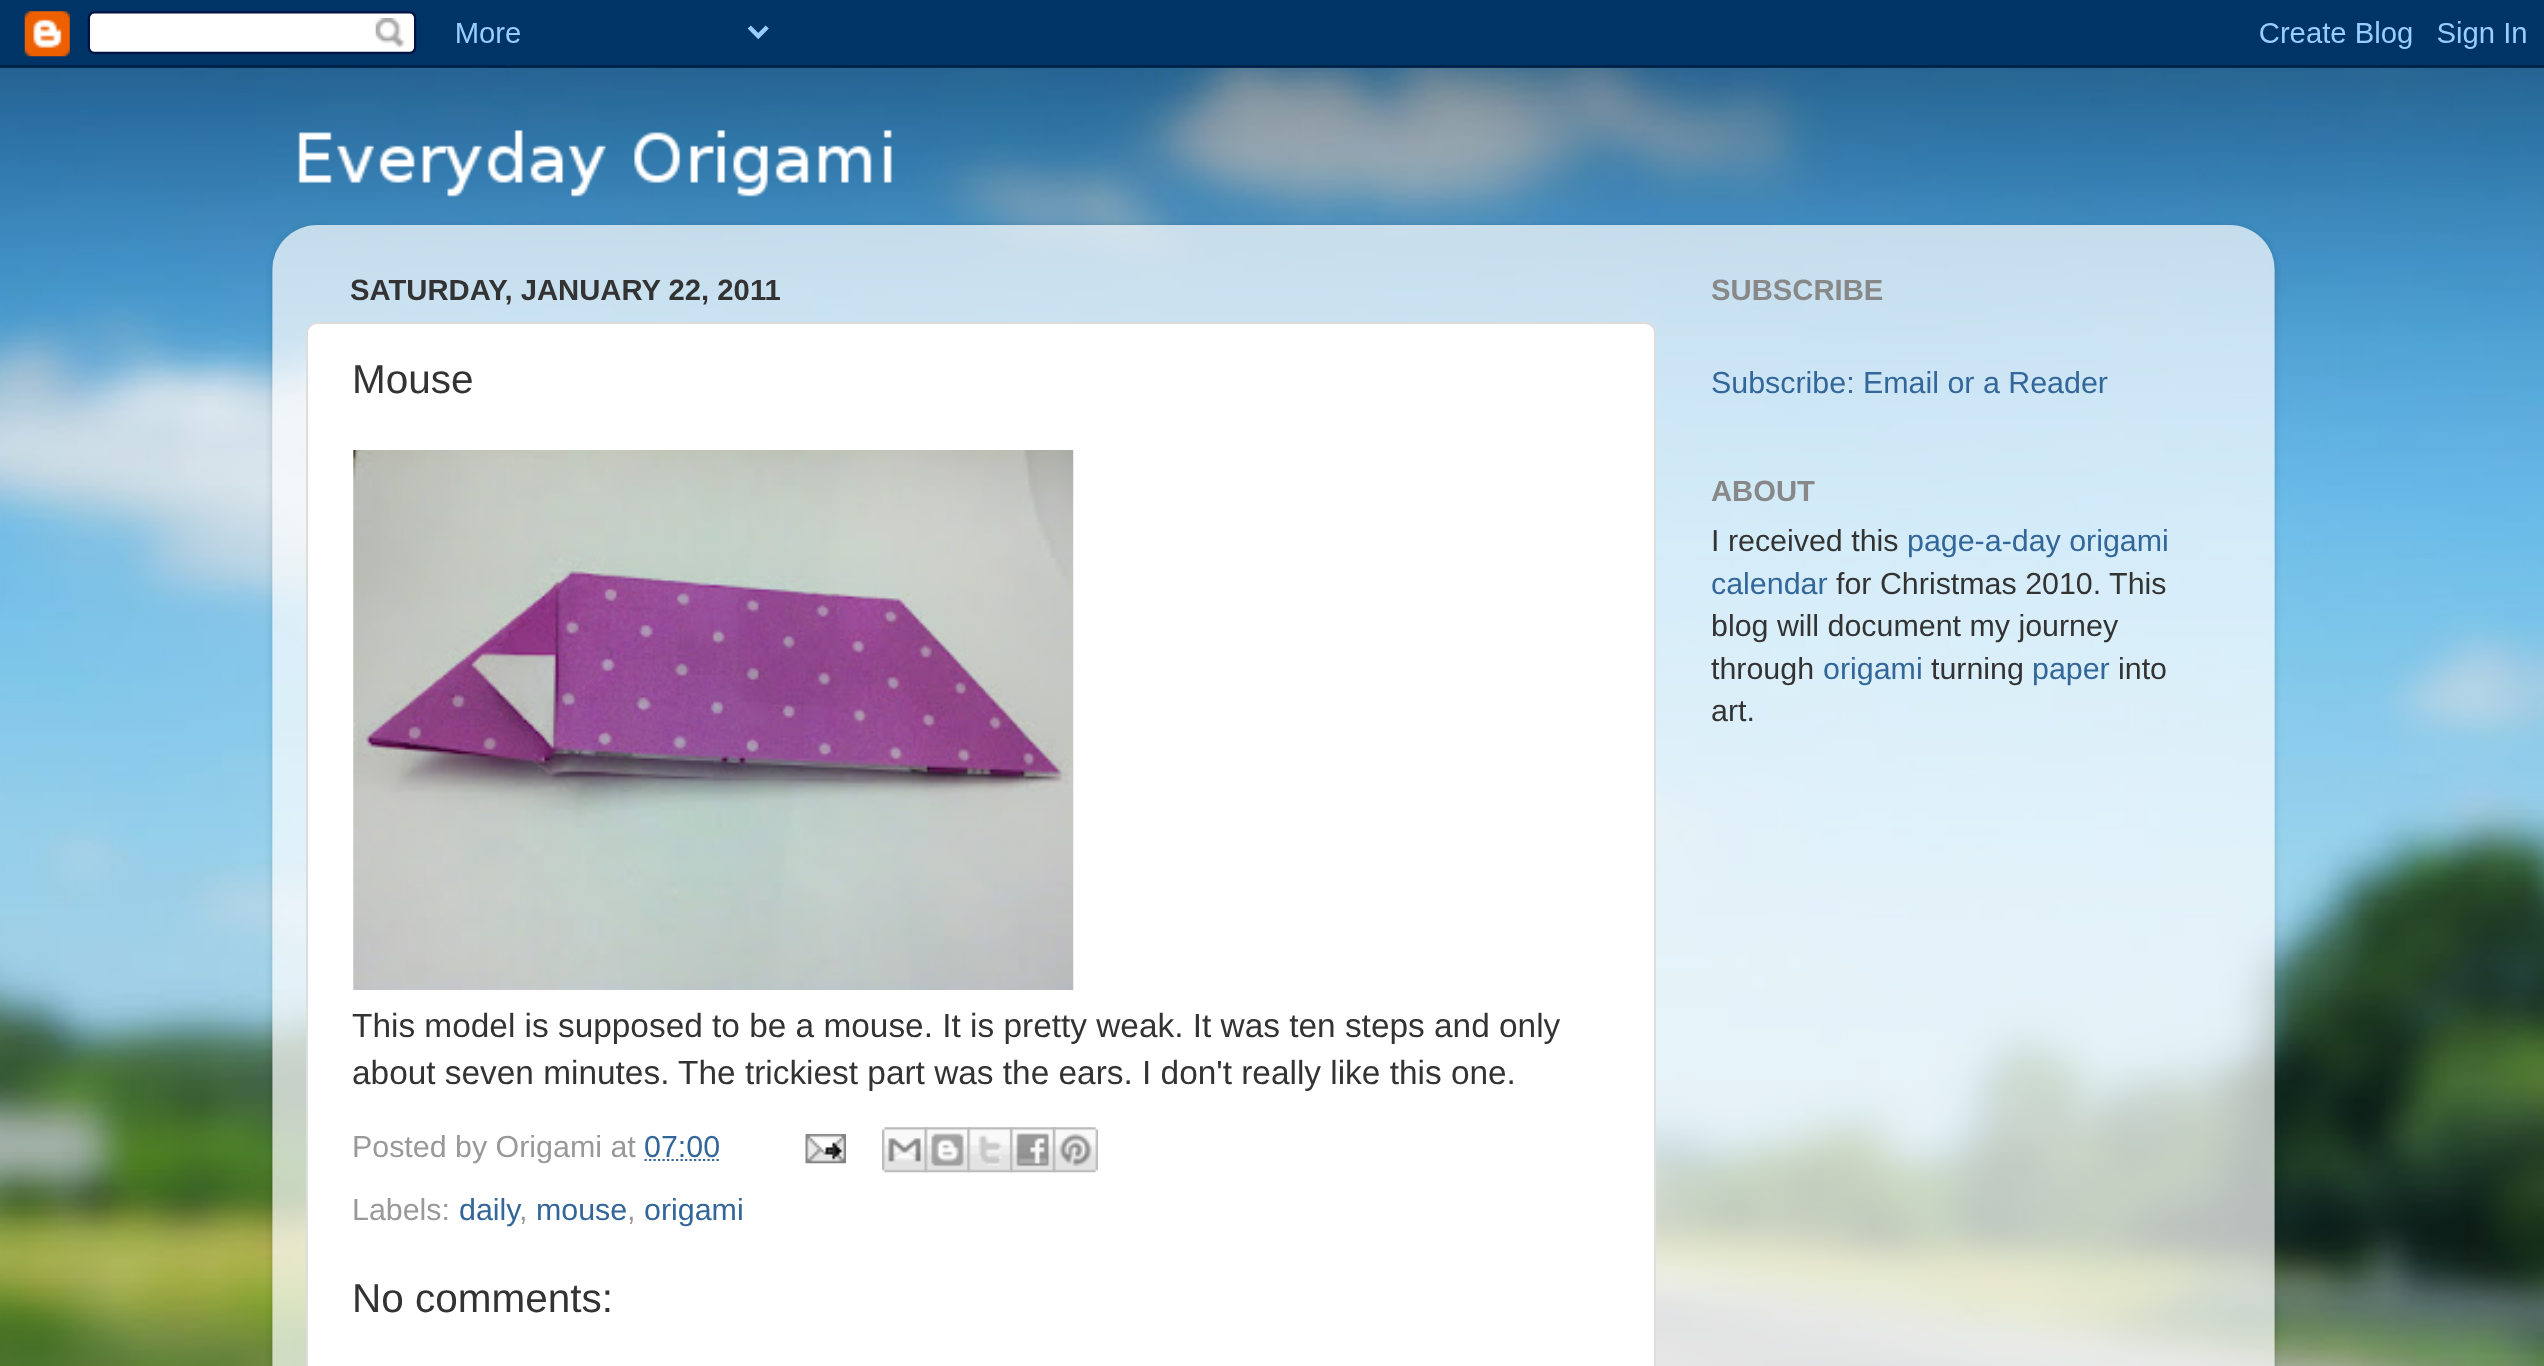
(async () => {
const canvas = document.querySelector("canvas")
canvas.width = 2544
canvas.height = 1366
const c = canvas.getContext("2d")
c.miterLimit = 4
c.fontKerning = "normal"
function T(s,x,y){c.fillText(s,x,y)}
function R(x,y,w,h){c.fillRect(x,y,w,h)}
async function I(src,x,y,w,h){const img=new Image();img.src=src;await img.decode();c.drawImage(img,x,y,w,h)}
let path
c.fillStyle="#fff"
R(0,0,2544,1366)
await I("1.png",0,65,2544,1301)
await I("2.png",0,0,2544,68)
await I("3.png",298,130,594,67)
c.save()
path = new Path2D("M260 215h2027v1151h-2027zm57 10h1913c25 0 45 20 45 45v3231h-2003v-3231c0-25 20-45 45-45z")
c.clip(path,"evenodd")
c.fillStyle="#00000026"
c.filter="blur(3.5px)"
c.beginPath()
c.roundRect(272,227,2003,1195,45)
c.fill()
c.filter="none"
c.restore()
await I("4.png",272,225,2003,1141)
c.font="bold 29.25px Liberation Sans"
c.fillStyle="#333"
T("SATURDAY, JANUARY 22, 2011",350,300)
c.fillStyle="#fff"
c.beginPath()
c.roundRect(307,323,1348,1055,10)
c.fill()
c.strokeStyle="#ddd"
c.lineWidth=2
c.stroke()
c.font="40.5px Liberation Sans"
c.fillStyle="#333"
T("Mouse",352,393)
await I("5.png",353,450,721,540)
c.font="33.4px Liberation Sans"
T("This model is supposed to be a mouse. It is pretty weak. It was ten steps and only",352,1037)
T("about seven minutes. The trickiest part was the ears. I don't really like this one.",352,1084)
c.font="30.4px Liberation Sans"
c.fillStyle="#999"
T("Posted by Origami at",352,1157)
c.fillStyle="#369"
T("07:00",644,1157)
path = new Path2D("M644.5 1160h76")
c.strokeStyle="#369"
c.lineWidth=2.2
c.setLineDash([2.25,2.25])
c.stroke(path)
await I("6.png",805,1134,41,30)
await I("7.png",882,1127,45,46)
await I("8.png",924,1127,46,46)
await I("9.png",967,1127,46,46)
await I("10.png",1010,1127,46,46)
await I("11.png",1053,1127,45,46)
c.fillStyle="#999"
T("Labels:",352,1220)
c.fillStyle="#369"
T("daily",459,1220)
c.fillStyle="#999"
T(",",519,1220)
c.fillStyle="#369"
T("mouse",536,1220)
c.fillStyle="#999"
T(",",627,1220)
c.fillStyle="#369"
T("origami",644,1220)
c.font="40.5px Liberation Sans"
c.fillStyle="#333"
T("No comments:",352,1312)
c.font="bold 29.25px Liberation Sans"
c.fillStyle="#888"
T("SUBSCRIBE",1711,300)
c.font="30.4px Liberation Sans"
c.fillStyle="#369"
T("Subscribe: Email or a Reader",1711,393)
c.font="bold 29.25px Liberation Sans"
c.fillStyle="#888"
T("ABOUT",1711,501)
c.font="30.4px Liberation Sans"
c.fillStyle="#333"
T("I received this",1711,551)
c.fillStyle="#369"
T("page-a-day origami",1907,551)
T("calendar",1711,594)
c.fillStyle="#333"
T("for Christmas 2010. This",1836,594)
T("blog will document my journey",1711,636)
T("through",1711,679)
c.fillStyle="#369"
T("origami",1823,679)
c.fillStyle="#333"
T("turning",1931,679)
c.fillStyle="#369"
T("paper",2032,679)
c.fillStyle="#333"
T("into",2118,679)
T("art.",1711,721)
})()
